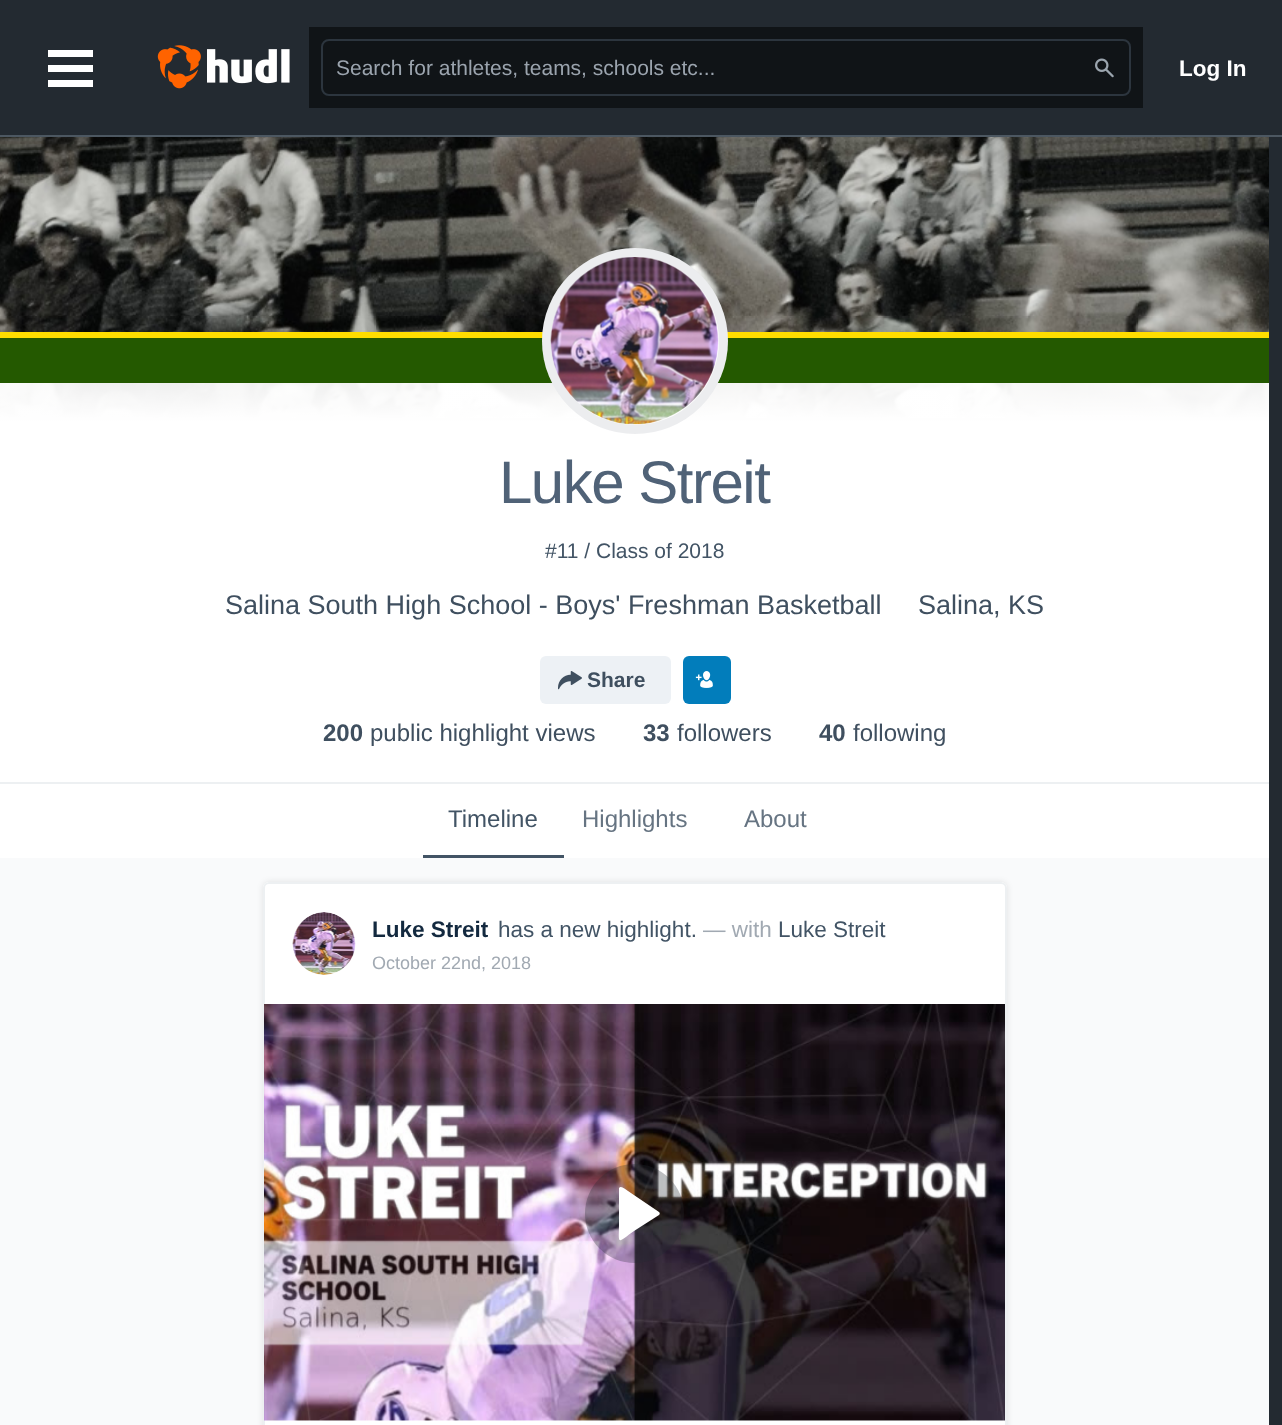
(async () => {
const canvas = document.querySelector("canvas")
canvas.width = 1282
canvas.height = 1425
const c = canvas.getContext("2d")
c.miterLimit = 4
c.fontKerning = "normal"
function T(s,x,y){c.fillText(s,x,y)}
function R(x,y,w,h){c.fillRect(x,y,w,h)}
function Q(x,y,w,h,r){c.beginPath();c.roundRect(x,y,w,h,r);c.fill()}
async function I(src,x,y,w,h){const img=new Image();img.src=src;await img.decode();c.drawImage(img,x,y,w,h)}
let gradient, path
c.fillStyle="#232a31"
R(0,0,1282,1425)
c.fillStyle="#4c5761"
R(0,135,1282,2)
c.fillStyle="#fff"
R(48,50,45,7)
R(48,65,45,7)
R(48,80,45,7)
await I("1.png",157,45,133,44)
c.fillStyle="#101417"
R(309,27,834,81)
c.beginPath()
c.roundRect(322,40,808,55,7)
c.strokeStyle="#2c353e"
c.lineWidth=2
c.stroke()
c.font="21px Liberation Sans"
c.fillStyle="#9ba4ae"
T("Search for athletes, teams, schools etc...",336,75)
await I("2.png",1095,58,19,20)
c.font="bold 22.5px Liberation Sans"
c.fillStyle="#fff"
T("Log In",1179,76)
await I("3.png",0,137,1269,281)
gradient = c.createLinearGradient(635,331,635,782)
gradient.addColorStop(0,"#ffffffd9")
gradient.addColorStop(.2,"#fff")
c.fillStyle = gradient
R(0,383,1269,399)
c.fillStyle="#edf0f2"
R(0,782,1269,2)
c.fillStyle="#fd0"
R(0,332,1269,6)
c.fillStyle="#245900"
R(0,338,1269,45)
c.fillStyle="#fff"
c.beginPath()
c.arc(635,341,93,0,7)
c.fill()
c.beginPath()
c.arc(635,341,88.5,0,7)
c.strokeStyle="#45525e1a"
c.lineWidth=9
c.stroke()
await I("4.png",550,257,169,168)
c.letterSpacing="-1.5px"
c.font="60px Liberation Sans"
c.fillStyle="#506277"
T("Luke Streit",499,503)
c.letterSpacing="0px"
c.font="21px Liberation Sans"
c.fillStyle="#425465"
T("#11 / Class of 2018",545,558)
c.font="27px Liberation Sans"
c.fillStyle="#3f4f5f"
T("Salina South High School - Boys' Freshman Basketball",225,614)
T("Salina, KS",918,614)
c.fillStyle="#edf1f5"
Q(540,656,131,48,6)
await I("5.png",558,671,24,19)
c.font="bold 21px Liberation Sans"
c.fillStyle="#3f4f5f"
T("Share",587,687)
c.fillStyle="#027dbb"
Q(683,656,48,48,6)
await I("6.png",695,671,18,17)
c.font="bold 24px Liberation Sans"
c.fillStyle="#3f4f5f"
T("200",323,741)
c.font="24px Liberation Sans"
T("public highlight views",370,741)
c.font="bold 24px Liberation Sans"
T("33",643,741)
c.font="24px Liberation Sans"
T("followers",677,741)
c.font="bold 24px Liberation Sans"
T("40",819,741)
c.font="24px Liberation Sans"
T("following",853,741)
c.fillStyle="#fff"
R(0,784,1269,74)
c.fillStyle="#425465"
R(423,855,141,3)
T("Timeline",448,827)
c.fillStyle="#667482"
T("Highlights",582,827)
T("About",744,827)
c.fillStyle="#f9fafb"
R(0,858,1269,567)
c.fillStyle="#0000001a"
c.filter="blur(3px)"
c.beginPath()
c.roundRect(263,882,744,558,6)
c.fill()
c.filter="none"
c.fillStyle="#fff"
path = new Path2D("M269 882h732c3.5 0 6 2.5 6 6v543h-744v-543c0-3.5 2.5-6 6-6z")
c.fill(path)
c.beginPath()
c.roundRect(264,883,742,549,5)
c.strokeStyle="#edf0f2"
c.lineWidth=2
c.stroke()
await I("7.png",292,912,64,63)
c.font="bold 22.5px Liberation Sans"
c.fillStyle="#13293f"
T("Luke Streit",372,937)
c.font="22.5px Liberation Sans"
c.fillStyle="#425465"
T("has a new highlight.",498,937)
c.fillStyle="#a1a9b2"
T("— with",703,937)
c.fillStyle="#425465"
T("Luke Streit",778,937)
c.font="18px Liberation Sans"
c.fillStyle="#a1a9b2"
T("October 22nd, 2018",372,969)
await I("8.png",264,1004,741,417)
c.fillStyle="#232a314d"
c.beginPath()
c.arc(634.5,1213.5,49.5,0,7)
c.fill()
c.fillStyle="#fff"
path = new Path2D("M619 1188v34c0 23-3 22 15 9l25-16c1-1 1-2 0-3l-31-21c-3-2-7-6-9-3z")
c.fill(path,"evenodd")
})()
